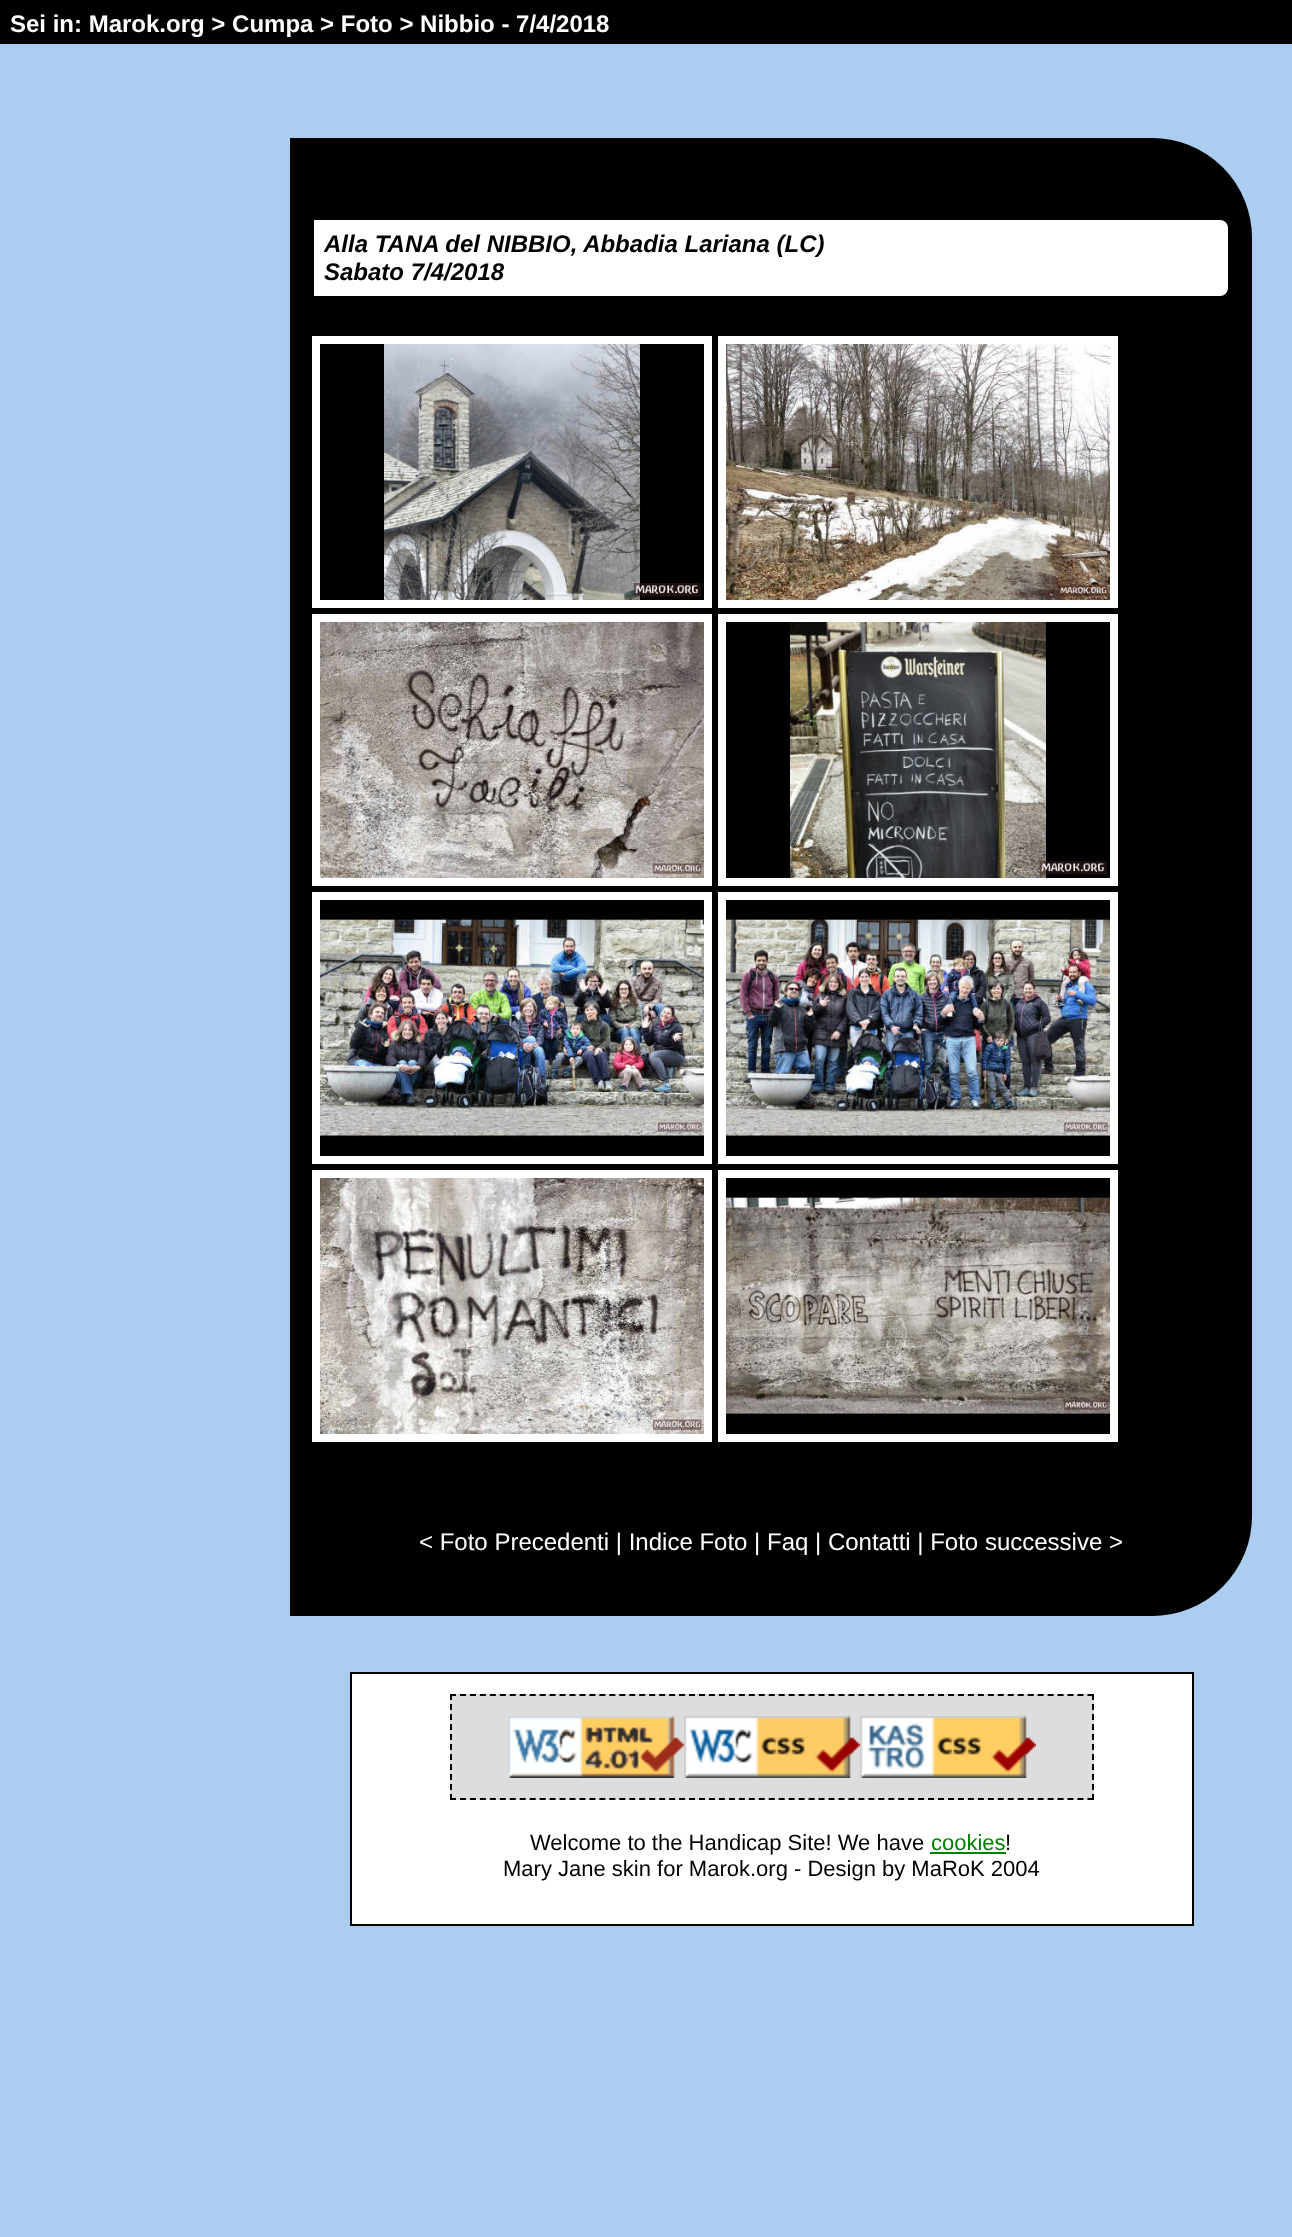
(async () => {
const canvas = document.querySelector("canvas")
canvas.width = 1292
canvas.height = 2237
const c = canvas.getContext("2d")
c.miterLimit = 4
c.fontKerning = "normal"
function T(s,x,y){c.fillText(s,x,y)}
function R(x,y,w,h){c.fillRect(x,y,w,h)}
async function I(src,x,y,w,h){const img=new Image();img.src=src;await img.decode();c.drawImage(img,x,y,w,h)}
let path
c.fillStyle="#abcdef"
R(0,0,1292,2237)
c.fillStyle="#000"
R(0,0,1292,44)
c.font="bold 24px Liberation Sans"
c.fillStyle="#fff"
T("Sei in: Marok.org > Cumpa > Foto > Nibbio - 7/4/2018",10,32)
c.fillStyle="#000001"
c.beginPath()
c.roundRect(291,139,960,1476,[0,99,99,0])
c.fill()
c.strokeStyle="#000"
c.lineWidth=2
c.stroke()
c.fillStyle="#fffffe"
c.beginPath()
c.roundRect(313,219,916,78,[0,9,9,0])
c.fill()
c.stroke()
c.font="italic bold 24px Liberation Sans"
c.fillStyle="#000"
T("Alla TANA del NIBBIO, Abbadia Lariana (LC)",324,252)
T("Sabato 7/4/2018",324,280)
c.strokeStyle="#fff"
c.lineWidth=8
c.strokeRect(316,340,392,264)
c.strokeRect(722,340,392,264)
await I("1.png",381,344,321,256)
await I("2.png",726,344,384,256)
c.strokeRect(316,618,392,264)
c.strokeRect(722,618,392,264)
await I("3.png",320,622,384,256)
await I("4.png",787,622,321,256)
c.strokeRect(316,896,392,264)
c.strokeRect(722,896,392,264)
await I("5.png",320,914,384,225)
await I("6.png",726,914,384,225)
c.strokeRect(316,1174,392,264)
c.strokeRect(722,1174,392,264)
await I("7.png",320,1178,384,256)
await I("8.png",726,1192,384,225)
c.font="24px Liberation Sans"
c.fillStyle="#fff"
T("< Foto Precedenti | Indice Foto | Faq | Contatti | Foto successive >",419,1550)
c.fillStyle="#fffffe"
c.beginPath()
c.rect(351,1673,842,252)
c.fill()
c.strokeStyle="#000"
c.lineWidth=2
c.stroke()
c.fillStyle="#ddd"
R(450,1694,644,106)
path = new Path2D("M450 1695h644")
c.setLineDash([6,3.96])
c.stroke(path)
path = new Path2D("M1093 1694v106")
c.setLineDash([6,4])
c.stroke(path)
path = new Path2D("M450 1799h644")
c.setLineDash([6,3.96])
c.stroke(path)
path = new Path2D("M451 1694v106")
c.setLineDash([6,4])
c.stroke(path)
await I("9.png",508,1716,176,62)
await I("10.png",684,1716,176,62)
await I("11.png",860,1716,176,62)
c.font="22px Liberation Sans"
c.fillStyle="#000"
T("Welcome to the Handicap Site! We have",530,1850)
c.fillStyle="#008000"
T("cookies",931,1850)
R(930,1852,76,2)
c.fillStyle="#000"
T("!",1005,1850)
T("Mary Jane skin for Marok.org - Design by MaRoK 2004",503,1876)
})()
